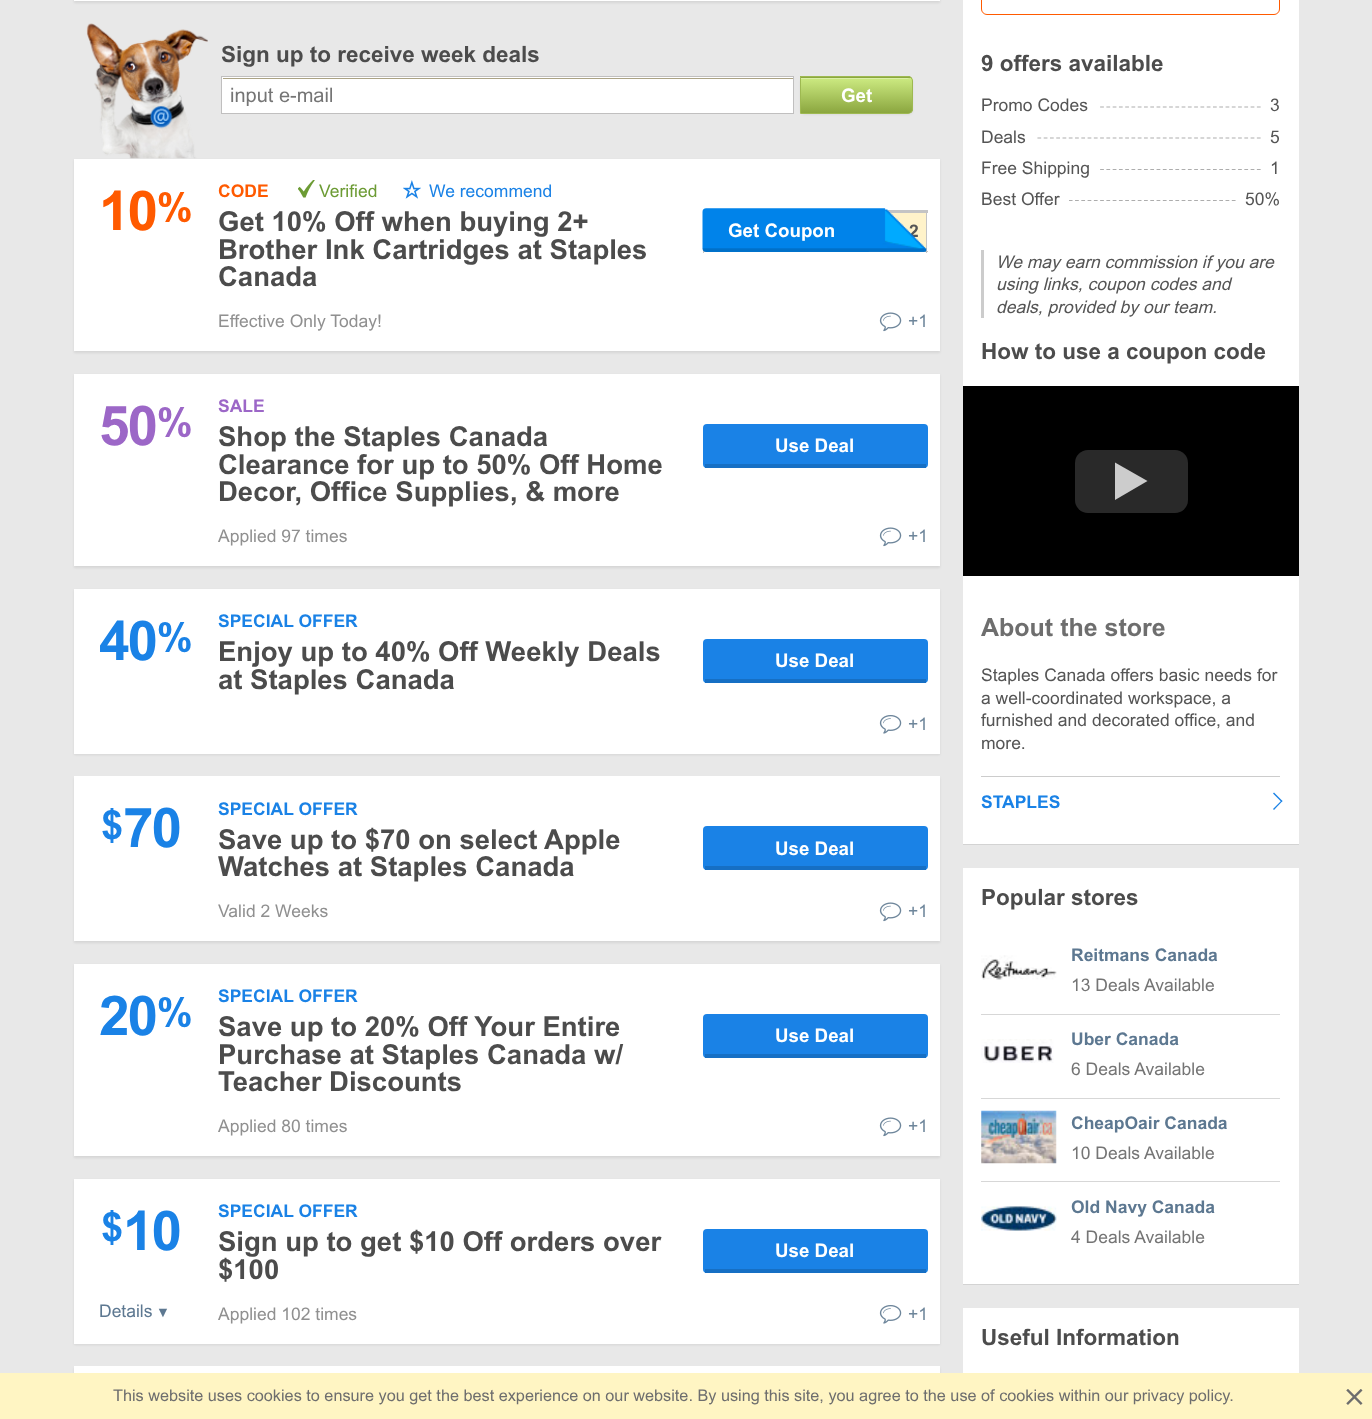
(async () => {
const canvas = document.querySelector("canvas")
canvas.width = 1372
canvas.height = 1419
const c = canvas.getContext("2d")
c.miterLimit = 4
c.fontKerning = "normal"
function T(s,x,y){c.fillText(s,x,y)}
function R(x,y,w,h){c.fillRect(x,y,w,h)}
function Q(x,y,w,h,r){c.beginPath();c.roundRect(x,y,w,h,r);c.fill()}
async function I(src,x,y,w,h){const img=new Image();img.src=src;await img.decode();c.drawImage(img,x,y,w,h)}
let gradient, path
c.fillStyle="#e8e8e8"
R(0,0,1372,1419)
c.fillStyle="#00000014"
c.filter="blur(1px)"
c.beginPath()
c.rect(74,-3,866,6)
c.fill()
c.filter="none"
c.fillStyle="#fff"
R(74,0,866,1)
await I("1.png",86,23,122,136)
c.font="bold 22.5px Arial"
c.fillStyle="#4c4c4c"
T("Sign up to receive week deals",221,62)
c.fillStyle="#fff"
R(222,77,571,36)
c.fillStyle="#aba385"
R(223,78,570,1)
c.strokeStyle="#c0bfbf"
c.strokeRect(221.5,76.5,572,37)
c.font="20px Arial"
c.fillStyle="#757575"
T("input e-mail",230,102)
c.fillStyle="#0000000d"
c.filter="blur(1px)"
c.beginPath()
c.roundRect(800,78,113,37,5)
c.fill()
c.filter="none"
c.save()
c.beginPath()
c.roundRect(800,76,113,38,[0,5,5,0])
c.clip()
gradient = c.createLinearGradient(856,42,856,78)
gradient.addColorStop(0,"#ceec83")
gradient.addColorStop(1,"#8ba63f")
c.fillStyle = gradient
R(800,76,113,2)
gradient = c.createLinearGradient(856,77,856,113)
gradient.addColorStop(0,"#ceec83")
gradient.addColorStop(1,"#8ba63f")
c.fillStyle = gradient
R(801,78,112,35)
c.restore()
c.fillStyle="#dbf0a6"
path = new Path2D("M801 79h107c1 0 2 0 2 1c0-1-2-2-3-2h-106z")
c.fill(path)
c.beginPath()
c.roundRect(800.5,76.5,112,37,[0,4.5,4.5,0])
c.strokeStyle="#9eb951"
c.stroke()
c.font="bold 18.75px Arial"
c.fillStyle="#fff"
T("Get",841,102)
c.fillStyle="#00000014"
c.filter="blur(1px)"
c.beginPath()
c.rect(74,160,866,193)
c.fill()
c.filter="none"
c.fillStyle="#fff"
R(74,159,866,192)
c.letterSpacing="-2px"
c.font="bold 55px Arial"
c.fillStyle="#ff5a00"
T("10",99,230)
c.font="bold 40px Arial"
T("%",157,221)
c.letterSpacing="0px"
c.font="bold 17.5px Arial"
T("CODE",218,197)
await I("2.png",298,180,17,18)
c.font="17.5px Arial"
c.fillStyle="#6c9b34"
T("Verified",319,197)
await I("3.png",403,180,18,19)
c.fillStyle="#1a82e6"
T("We recommend",429,197)
c.font="bold 27.5px Arial"
c.fillStyle="#4c4c4c"
T("Get 10% Off when buying 2+",218,231)
T("Brother Ink Cartridges at Staples",218,259)
T("Canada",218,286)
c.fillStyle="#fff3ca"
R(889,213,37,36)
c.fillStyle="#c4c4c4"
R(887,210,41,3)
R(926,210,1,43)
R(703,251,225,1)
R(703,250,1,3)
c.font="bold 17.5px Arial"
c.fillStyle="#555"
T("2",909,237)
await I("4.png",702,208,225,44)
c.font="bold 18.75px Arial"
c.fillStyle="#fff"
T("Get Coupon",728,237)
c.font="17.5px Arial"
c.fillStyle="#909090"
T("Effective Only Today!",218,327)
await I("5.png",879,312,23,20)
c.fillStyle="#6e869b"
T("+1",908,327)
c.fillStyle="#00000014"
c.filter="blur(1px)"
c.beginPath()
c.rect(74,375,866,193)
c.fill()
c.filter="none"
c.fillStyle="#fff"
R(74,374,866,192)
c.letterSpacing="-2px"
c.font="bold 55px Arial"
c.fillStyle="#9c67c7"
T("50",99,445)
c.font="bold 40px Arial"
T("%",157,436)
c.letterSpacing="0px"
c.font="bold 17.5px Arial"
T("SALE",218,412)
c.font="bold 27.5px Arial"
c.fillStyle="#4c4c4c"
T("Shop the Staples Canada",218,446)
T("Clearance for up to 50% Off Home",218,474)
T("Decor, Office Supplies, & more",218,501)
c.fillStyle="#1a82e6"
Q(703,424,225,44,4)
c.fillStyle="#166fc4"
R(705,464,221,4)
c.font="bold 18.75px Arial"
c.fillStyle="#fff"
T("Use Deal",775,452)
c.font="17.5px Arial"
c.fillStyle="#909090"
T("Applied 97 times",218,542)
await I("5.png",879,527,23,20)
c.fillStyle="#6e869b"
T("+1",908,542)
c.fillStyle="#00000014"
c.filter="blur(1px)"
c.beginPath()
c.rect(74,590,866,165)
c.fill()
c.filter="none"
c.fillStyle="#fff"
R(74,589,866,165)
c.letterSpacing="-2px"
c.font="bold 55px Arial"
c.fillStyle="#1a82e6"
T("40",99,660)
c.font="bold 40px Arial"
T("%",157,651)
c.letterSpacing="0px"
c.font="bold 17.5px Arial"
T("SPECIAL OFFER",218,627)
c.font="bold 27.5px Arial"
c.fillStyle="#4c4c4c"
T("Enjoy up to 40% Off Weekly Deals",218,661)
T("at Staples Canada",218,689)
c.fillStyle="#1a82e6"
Q(703,639,225,44,4)
c.fillStyle="#166fc4"
R(705,679,221,4)
c.font="bold 18.75px Arial"
c.fillStyle="#fff"
T("Use Deal",775,667)
await I("6.png",879,715,23,19)
c.font="17.5px Arial"
c.fillStyle="#6e869b"
T("+1",908,730)
c.fillStyle="#00000014"
c.filter="blur(1px)"
c.beginPath()
c.rect(74,778,866,165)
c.fill()
c.filter="none"
c.fillStyle="#fff"
R(74,776,866,165)
c.letterSpacing="-2px"
c.font="bold 40px Arial"
c.fillStyle="#1a82e6"
T("$",101,839)
c.font="bold 55px Arial"
T("70",123,847)
c.letterSpacing="0px"
c.font="bold 17.5px Arial"
T("SPECIAL OFFER",218,815)
c.font="bold 27.5px Arial"
c.fillStyle="#4c4c4c"
T("Save up to $70 on select Apple",218,849)
T("Watches at Staples Canada",218,876)
c.fillStyle="#1a82e6"
Q(703,826,225,44,4)
c.fillStyle="#166fc4"
R(705,866,221,4)
c.font="bold 18.75px Arial"
c.fillStyle="#fff"
T("Use Deal",775,855)
c.font="17.5px Arial"
c.fillStyle="#909090"
T("Valid 2 Weeks",218,917)
await I("5.png",879,902,23,20)
c.fillStyle="#6e869b"
T("+1",908,917)
c.fillStyle="#00000014"
c.filter="blur(1px)"
c.beginPath()
c.rect(74,965,866,193)
c.fill()
c.filter="none"
c.fillStyle="#fff"
R(74,964,866,192)
c.letterSpacing="-2px"
c.font="bold 55px Arial"
c.fillStyle="#1a82e6"
T("20",99,1035)
c.font="bold 40px Arial"
T("%",157,1026)
c.letterSpacing="0px"
c.font="bold 17.5px Arial"
T("SPECIAL OFFER",218,1002)
c.font="bold 27.5px Arial"
c.fillStyle="#4c4c4c"
T("Save up to 20% Off Your Entire",218,1036)
T("Purchase at Staples Canada w/",218,1064)
T("Teacher Discounts",218,1091)
c.fillStyle="#1a82e6"
Q(703,1014,225,44,4)
c.fillStyle="#166fc4"
R(705,1054,221,4)
c.font="bold 18.75px Arial"
c.fillStyle="#fff"
T("Use Deal",775,1042)
c.font="17.5px Arial"
c.fillStyle="#909090"
T("Applied 80 times",218,1132)
await I("5.png",879,1117,23,20)
c.fillStyle="#6e869b"
T("+1",908,1132)
c.fillStyle="#00000014"
c.filter="blur(1px)"
c.beginPath()
c.rect(74,1180,866,165)
c.fill()
c.filter="none"
c.fillStyle="#fff"
R(74,1179,866,165)
c.letterSpacing="-2px"
c.font="bold 40px Arial"
c.fillStyle="#1a82e6"
T("$",101,1241)
c.font="bold 55px Arial"
T("10",123,1250)
c.letterSpacing="0px"
c.font="17.5px Arial"
c.fillStyle="#5d7891"
T("Details",99,1317)
c.font="12px Arial"
T("▼",157,1317)
c.font="bold 17.5px Arial"
c.fillStyle="#1a82e6"
T("SPECIAL OFFER",218,1217)
c.font="bold 27.5px Arial"
c.fillStyle="#4c4c4c"
T("Sign up to get $10 Off orders over",218,1251)
T("$100",218,1279)
c.fillStyle="#1a82e6"
Q(703,1229,225,44,4)
c.fillStyle="#166fc4"
R(705,1269,221,4)
c.font="bold 18.75px Arial"
c.fillStyle="#fff"
T("Use Deal",775,1257)
c.font="17.5px Arial"
c.fillStyle="#909090"
T("Applied 102 times",218,1320)
await I("6.png",879,1305,23,19)
c.fillStyle="#6e869b"
T("+1",908,1320)
c.fillStyle="#00000014"
c.filter="blur(1px)"
c.beginPath()
c.rect(74,1368,866,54)
c.fill()
c.filter="none"
c.fillStyle="#fff"
R(74,1366,866,7)
R(963,0,336,844)
c.fillStyle="#d3d3d3"
R(963,844,336,1)
c.beginPath()
c.roundRect(981.5,-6.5,298,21,5.5)
c.strokeStyle="#ff5a00"
c.stroke()
c.font="bold 22.5px Arial"
c.fillStyle="#4c4c4c"
T("9 offers available",981,71)
path = new Path2D("M981 107h299")
c.strokeStyle="#adadad"
c.lineWidth=1.2
c.setLineDash([3.75,2.52])
c.stroke(path)
c.fillStyle="#fff"
R(981,106,117,2)
c.font="17.5px Arial"
c.fillStyle="#555"
T("Promo Codes",981,111)
c.fillStyle="#fff"
R(1263,106,17,2)
c.fillStyle="#555"
T("3",1270,111)
path = new Path2D("M981 138h299")
c.stroke(path)
c.fillStyle="#fff"
R(981,137,54,2)
c.fillStyle="#555"
T("Deals",981,143)
c.fillStyle="#fff"
R(1263,137,17,2)
c.fillStyle="#555"
T("5",1270,143)
path = new Path2D("M981 169.5h299")
c.stroke(path)
c.fillStyle="#fff"
R(981,168,117,3)
c.fillStyle="#555"
T("Free Shipping",981,174)
c.fillStyle="#fff"
R(1263,168,17,3)
c.fillStyle="#555"
T("1",1270,174)
path = new Path2D("M981 200.5h299")
c.stroke(path)
c.fillStyle="#fff"
R(981,199,88,3)
c.fillStyle="#555"
T("Best Offer",981,205)
c.fillStyle="#fff"
R(1238,199,42,3)
c.fillStyle="#555"
T("50%",1245,205)
c.fillStyle="#ccc"
R(981,250,3,68)
c.font="italic 17.5px Arial"
c.fillStyle="#555"
T("We may earn commission if you are",996,268)
T("using links, coupon codes and",996,290)
T("deals, provided by our team.",996,313)
c.font="bold 22.5px Arial"
c.fillStyle="#4c4c4c"
T("How to use a coupon code",981,359)
c.fillStyle="#000"
R(963,386,336,190)
c.fillStyle="#292929"
Q(1075,450,113,63,13)
c.fillStyle="#ccc"
path = new Path2D("M1115 500v-37.5l32.5 18.5z")
c.fill(path)
c.font="bold 25px Arial"
c.fillStyle="#6e6e6e"
T("About the store",981,636)
c.font="17.5px Arial"
c.fillStyle="#555"
T("Staples Canada offers basic needs for",981,681)
T("a well-coordinated workspace, a",981,704)
T("furnished and decorated office, and",981,726)
T("more.",981,749)
c.fillStyle="#ccc"
R(981,776,299,1)
c.font="bold 17.5px Arial"
c.fillStyle="#1a82e6"
T("STAPLES",981,808)
path = new Path2D("M1273 793.5l1-1l8.5 8.5l-1 1z")
c.fill(path)
path = new Path2D("M1273 809l8.5-8.5l1 .5l-8.5 9z")
c.fill(path)
c.fillStyle="#fff"
R(963,868,336,416)
c.fillStyle="#d3d3d3"
R(963,1284,336,1)
c.font="bold 22.5px Arial"
c.fillStyle="#4c4c4c"
T("Popular stores",981,905)
c.fillStyle="#d7d7d7"
R(981,1014,299,1)
await I("7.png",981,955,76,25)
c.font="bold 17.5px Arial"
c.fillStyle="#5d7891"
T("Reitmans Canada",1071,961)
c.font="17.5px Arial"
c.fillStyle="#757575"
T("13 Deals Available",1071,991)
c.fillStyle="#d7d7d7"
R(981,1098,299,1)
await I("8.png",981,1039,73,24)
c.font="bold 17.5px Arial"
c.fillStyle="#5d7891"
T("Uber Canada",1071,1045)
c.font="17.5px Arial"
c.fillStyle="#757575"
T("6 Deals Available",1071,1075)
c.fillStyle="#d7d7d7"
R(981,1181,299,1)
await I("9.png",981,1110,76,54)
c.font="bold 17.5px Arial"
c.fillStyle="#5d7891"
T("CheapOair Canada",1071,1129)
c.font="17.5px Arial"
c.fillStyle="#757575"
T("10 Deals Available",1071,1159)
await I("10.png",981,1206,76,25)
c.font="bold 17.5px Arial"
c.fillStyle="#5d7891"
T("Old Navy Canada",1071,1213)
c.font="17.5px Arial"
c.fillStyle="#757575"
T("4 Deals Available",1071,1243)
c.fillStyle="#fff"
R(963,1308,336,65)
c.font="bold 22.5px Arial"
c.fillStyle="#4c4c4c"
T("Useful Information",981,1345)
c.fillStyle="#fff5c3"
R(0,1373,1372,46)
c.font="16.25px Arial"
c.fillStyle="#6e6e6e"
T("This website uses cookies to ensure you get the best experience on our website. By using this site, you agree to the use of cookies within our privacy policy.",113,1401)
await I("11.png",1346,1389,17,16)
})()
